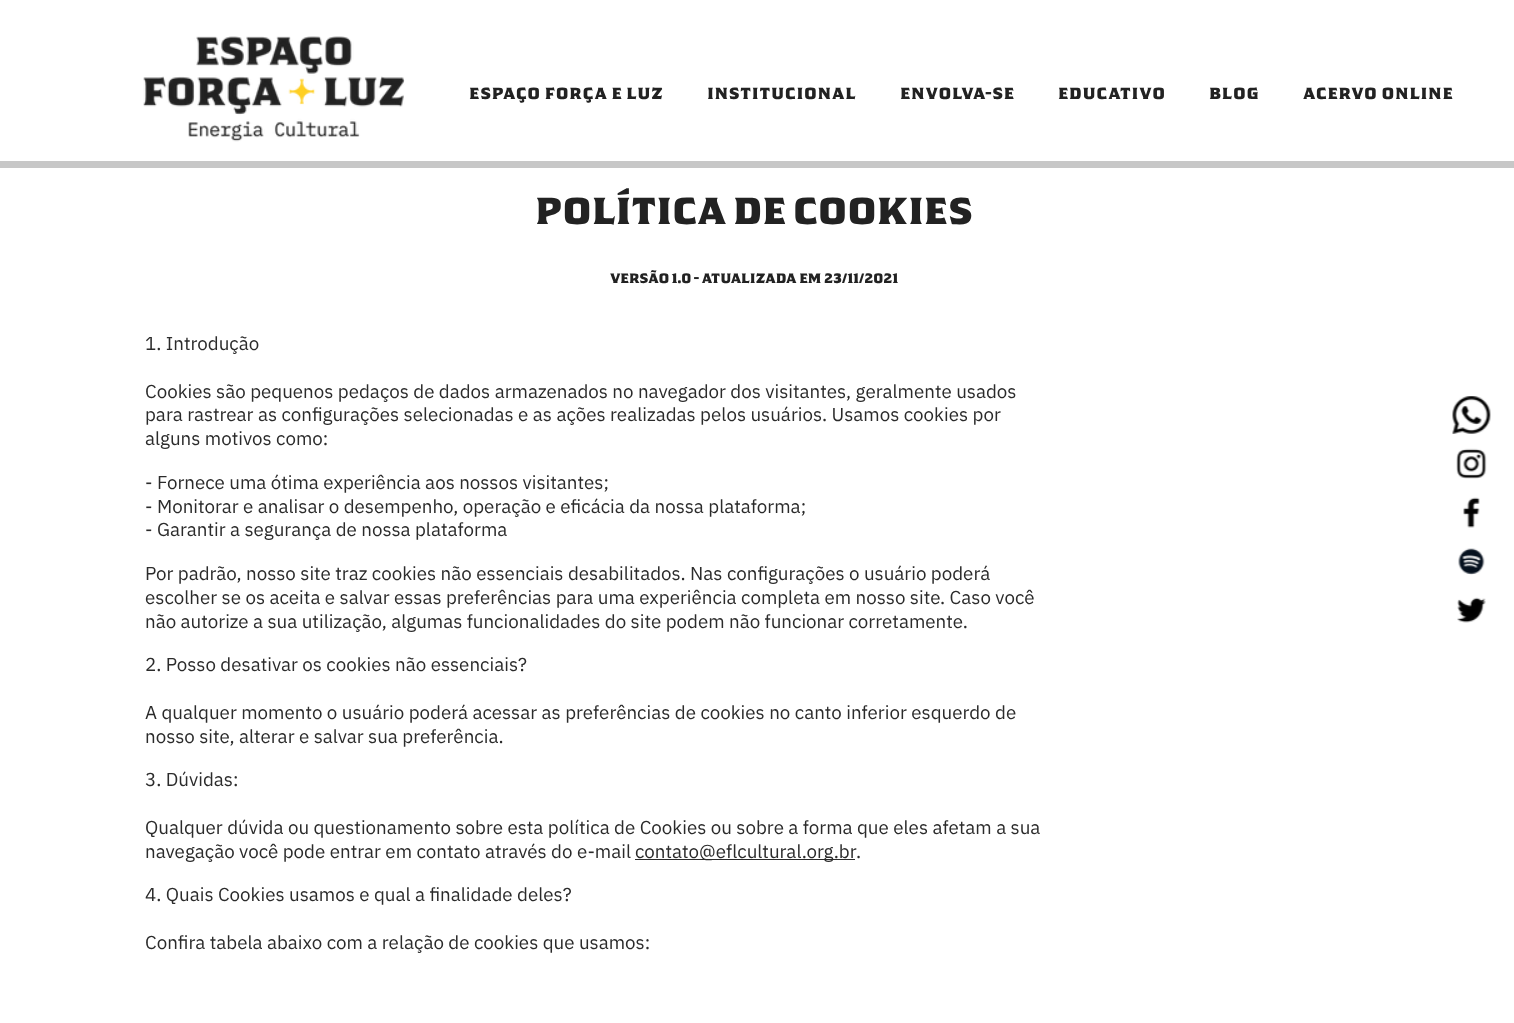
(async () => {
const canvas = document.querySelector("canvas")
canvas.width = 1514
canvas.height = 1023
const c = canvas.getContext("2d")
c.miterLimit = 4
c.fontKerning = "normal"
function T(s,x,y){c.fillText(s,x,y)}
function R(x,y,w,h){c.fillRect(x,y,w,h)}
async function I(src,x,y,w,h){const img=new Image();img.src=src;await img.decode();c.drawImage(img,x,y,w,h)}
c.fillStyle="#fff"
R(0,0,1514,1023)
await I("1.png",143,36,262,106)
c.letterSpacing="0.8px"
c.font="16.25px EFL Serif"
c.fillStyle="#222"
T("Espaço Força e Luz",469,99)
T("Institucional",707,99)
T("Envolva-se",900,99)
T("Educativo",1058,99)
T("Blog",1209,99)
T("Acervo online",1303,99)
c.fillStyle="#c7c7c7"
R(0,161,1514,7)
c.letterSpacing="0px"
c.font="37.5px 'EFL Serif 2'"
c.fillStyle="#222"
T("Política de cookies",535,224)
c.font="13.75px EFL Serif"
T("Versão 1.0 - Atualizada em 23/11/2021",610,283)
c.font="18.75px IBM Plex Sans"
c.fillStyle="#2b2b2b"
T("1. Introdução",145,350)
T("Cookies são pequenos pedaços de dados armazenados no navegador dos visitantes, geralmente usados",145,398)
T("para rastrear as configurações selecionadas e as ações realizadas pelos usuários. Usamos cookies por",145,421)
T("alguns motivos como:",145,445)
T("- Fornece uma ótima experiência aos nossos visitantes;",145,489)
T("- Monitorar e analisar o desempenho, operação e eficácia da nossa plataforma;",145,513)
T("- Garantir a segurança de nossa plataforma",145,536)
T("Por padrão, nosso site traz cookies não essenciais desabilitados. Nas configurações o usuário poderá",145,580)
T("escolher se os aceita e salvar essas preferências para uma experiência completa em nosso site. Caso você",145,604)
T("não autorize a sua utilização, algumas funcionalidades do site podem não funcionar corretamente.",145,628)
T("2. Posso desativar os cookies não essenciais?",145,671)
T("A qualquer momento o usuário poderá acessar as preferências de cookies no canto inferior esquerdo de",145,719)
T("nosso site, alterar e salvar sua preferência.",145,743)
T("3. Dúvidas:",145,786)
T("Qualquer dúvida ou questionamento sobre esta política de Cookies ou sobre a forma que eles afetam a sua",145,834)
T("navegação você pode entrar em contato através do e-mail",145,858)
R(635,859,220,1)
T("contato@eflcultural.org.br",635,858)
T(".",856,858)
T("4. Quais Cookies usamos e qual a finalidade deles?",145,901)
T("Confira tabela abaixo com a relação de cookies que usamos:",145,949)
await I("2.png",1452,396,39,38)
await I("3.png",1456,448,31,31)
await I("4.png",1463,497,17,31)
await I("5.png",1458,548,27,27)
await I("6.png",1457,597,29,26)
})()
